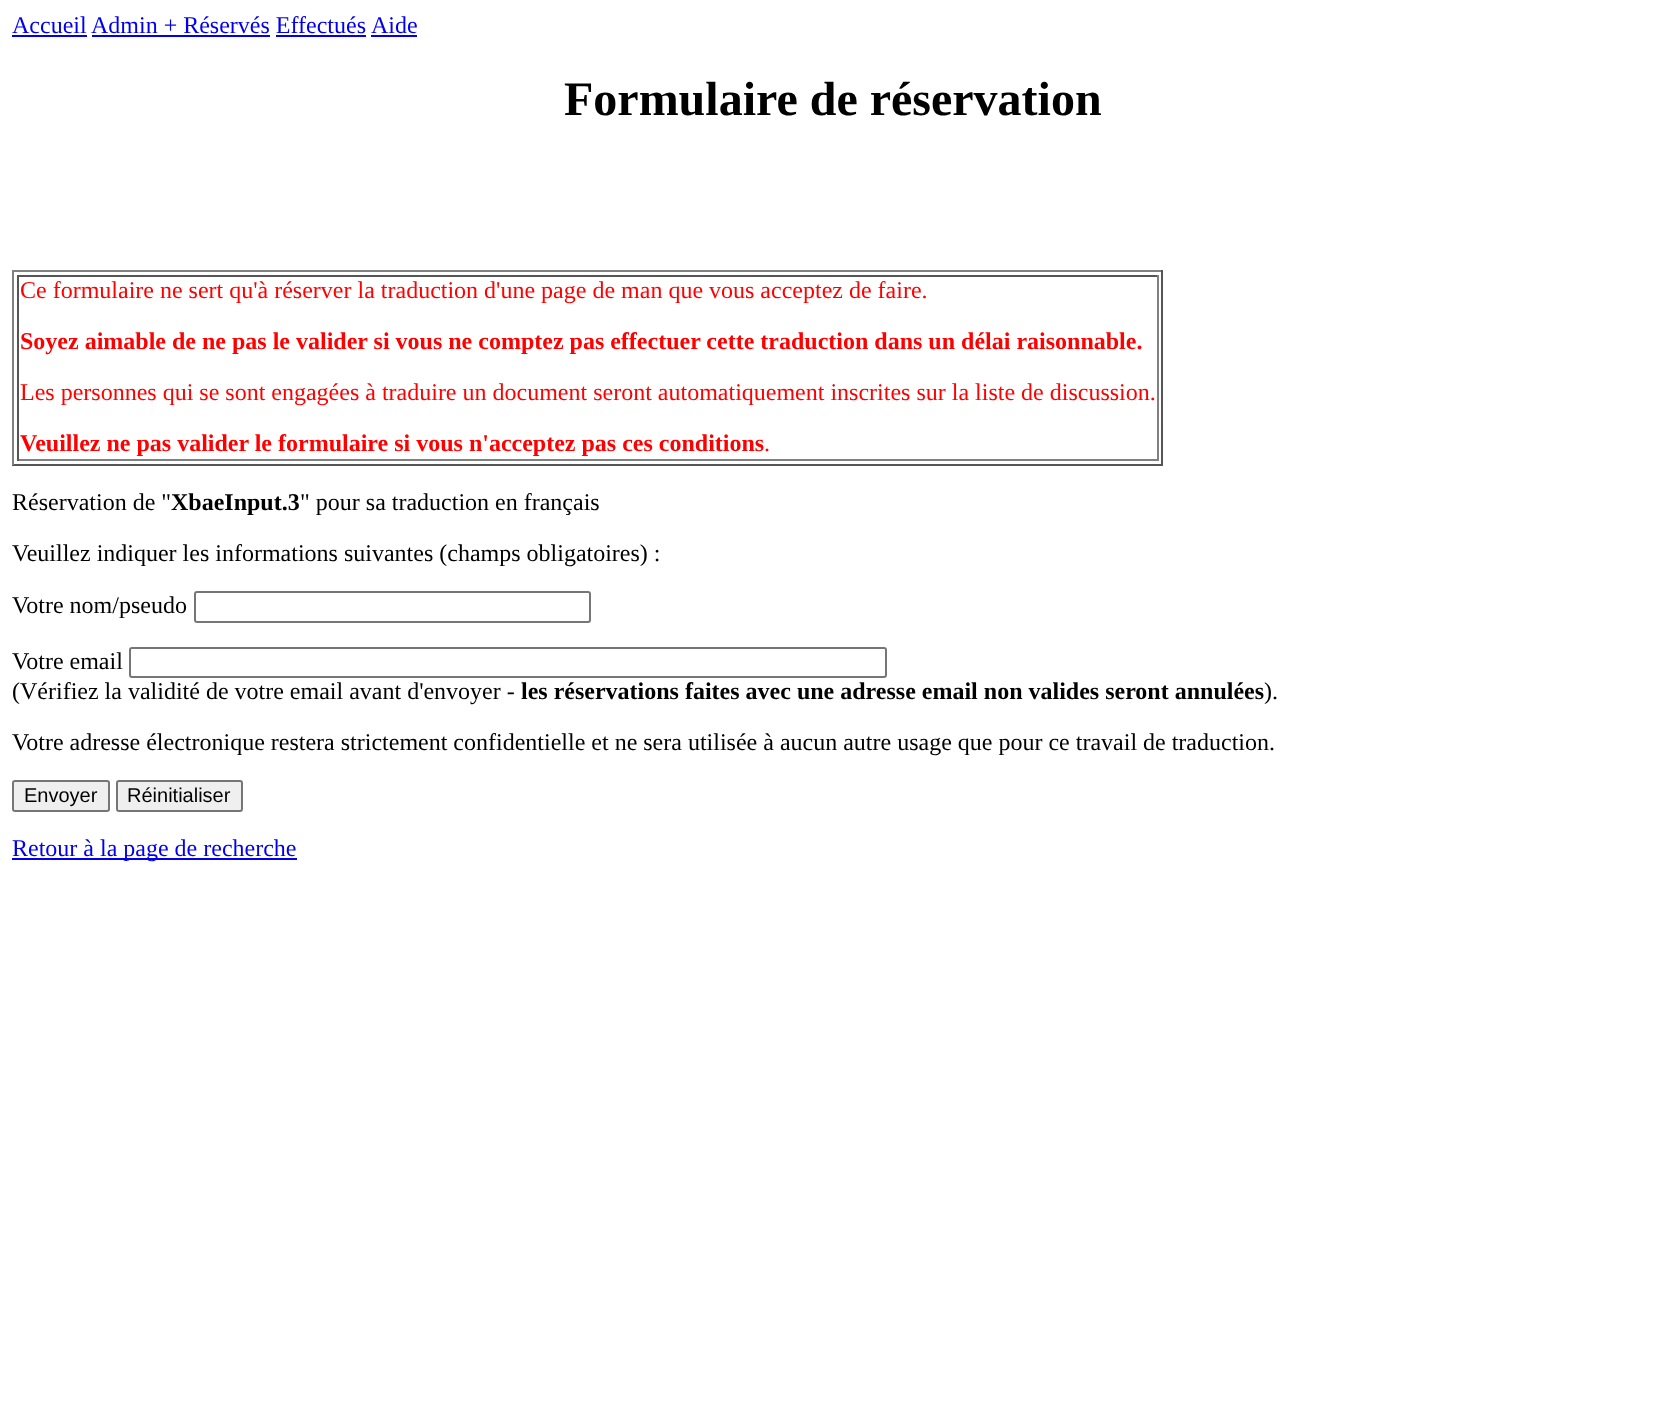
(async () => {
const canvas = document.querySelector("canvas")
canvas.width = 1664
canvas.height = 1427
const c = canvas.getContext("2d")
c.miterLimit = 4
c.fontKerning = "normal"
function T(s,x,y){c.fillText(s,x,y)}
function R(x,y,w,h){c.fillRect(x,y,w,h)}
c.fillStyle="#fff"
R(0,0,1664,1427)
c.font="24px Liberation Serif"
c.fillStyle="#00e"
T("Accueil",12,33)
R(12,35,75,2)
T("Admin + Réservés Effectués",91,33)
R(92,35,178,2)
T("Aide",371,33)
R(371,35,46,2)
R(276,35,90,2)
c.font="bold 48px Liberation Serif"
c.fillStyle="#000"
T("Formulaire de réservation",564,115)
c.fillStyle="#808080"
R(12,270,1151,2)
c.fillStyle="#555"
R(1161,270,2,195)
R(12,464,1151,2)
c.fillStyle="#808080"
R(12,270,2,195)
c.fillStyle="#555"
R(17,275,1141,2)
c.fillStyle="#808080"
R(1157,275,2,186)
R(17,459,1141,2)
c.fillStyle="#555"
R(17,275,2,186)
c.font="24px Liberation Serif"
c.fillStyle="#f00"
T("Ce formulaire ne sert qu'à réserver la traduction d'une page de man que vous acceptez de faire.",20,298)
c.font="bold 24px Liberation Serif"
T("Soyez aimable de ne pas le valider si vous ne comptez pas effectuer cette traduction dans un délai raisonnable.",20,349)
c.font="24px Liberation Serif"
T("Les personnes qui se sont engagées à traduire un document seront automatiquement inscrites sur la liste de discussion.",20,400)
c.font="bold 24px Liberation Serif"
T("Veuillez ne pas valider le formulaire si vous n'acceptez pas ces conditions",20,451)
c.font="24px Liberation Serif"
T(".",764,451)
c.fillStyle="#000"
T("Réservation de \"",12,510)
c.font="bold 24px Liberation Serif"
T("XbaeInput.3",171,510)
c.font="24px Liberation Serif"
T("\" pour sa traduction en français",300,510)
T("Veuillez indiquer les informations suivantes (champs obligatoires) :",12,561)
T("Votre nom/pseudo",12,613)
c.beginPath()
c.roundRect(195,592,395,30,2)
c.strokeStyle="#767676"
c.lineWidth=2
c.stroke()
T("Votre email",12,669)
c.beginPath()
c.roundRect(130,648,756,29,2)
c.stroke()
T("(Vérifiez la validité de votre email avant d'envoyer -",12,699)
c.font="bold 24px Liberation Serif"
T("les réservations faites avec une adresse email non valides seront annulées",521,699)
c.font="24px Liberation Serif"
T(").",1264,699)
T("Votre adresse électronique restera strictement confidentielle et ne sera utilisée à aucun autre usage que pour ce travail de traduction.",12,750)
c.fillStyle="#efefef"
c.beginPath()
c.roundRect(13,781,96,30,2)
c.fill()
c.stroke()
c.font="20px Liberation Sans"
c.fillStyle="#000"
T("Envoyer",24,802)
c.fillStyle="#efefef"
c.beginPath()
c.roundRect(117,781,125,30,2)
c.fill()
c.stroke()
c.fillStyle="#000"
T("Réinitialiser",127,802)
c.fillStyle="#00e"
R(12,858,285,2)
c.font="24px Liberation Serif"
T("Retour à la page de recherche",12,856)
})()
